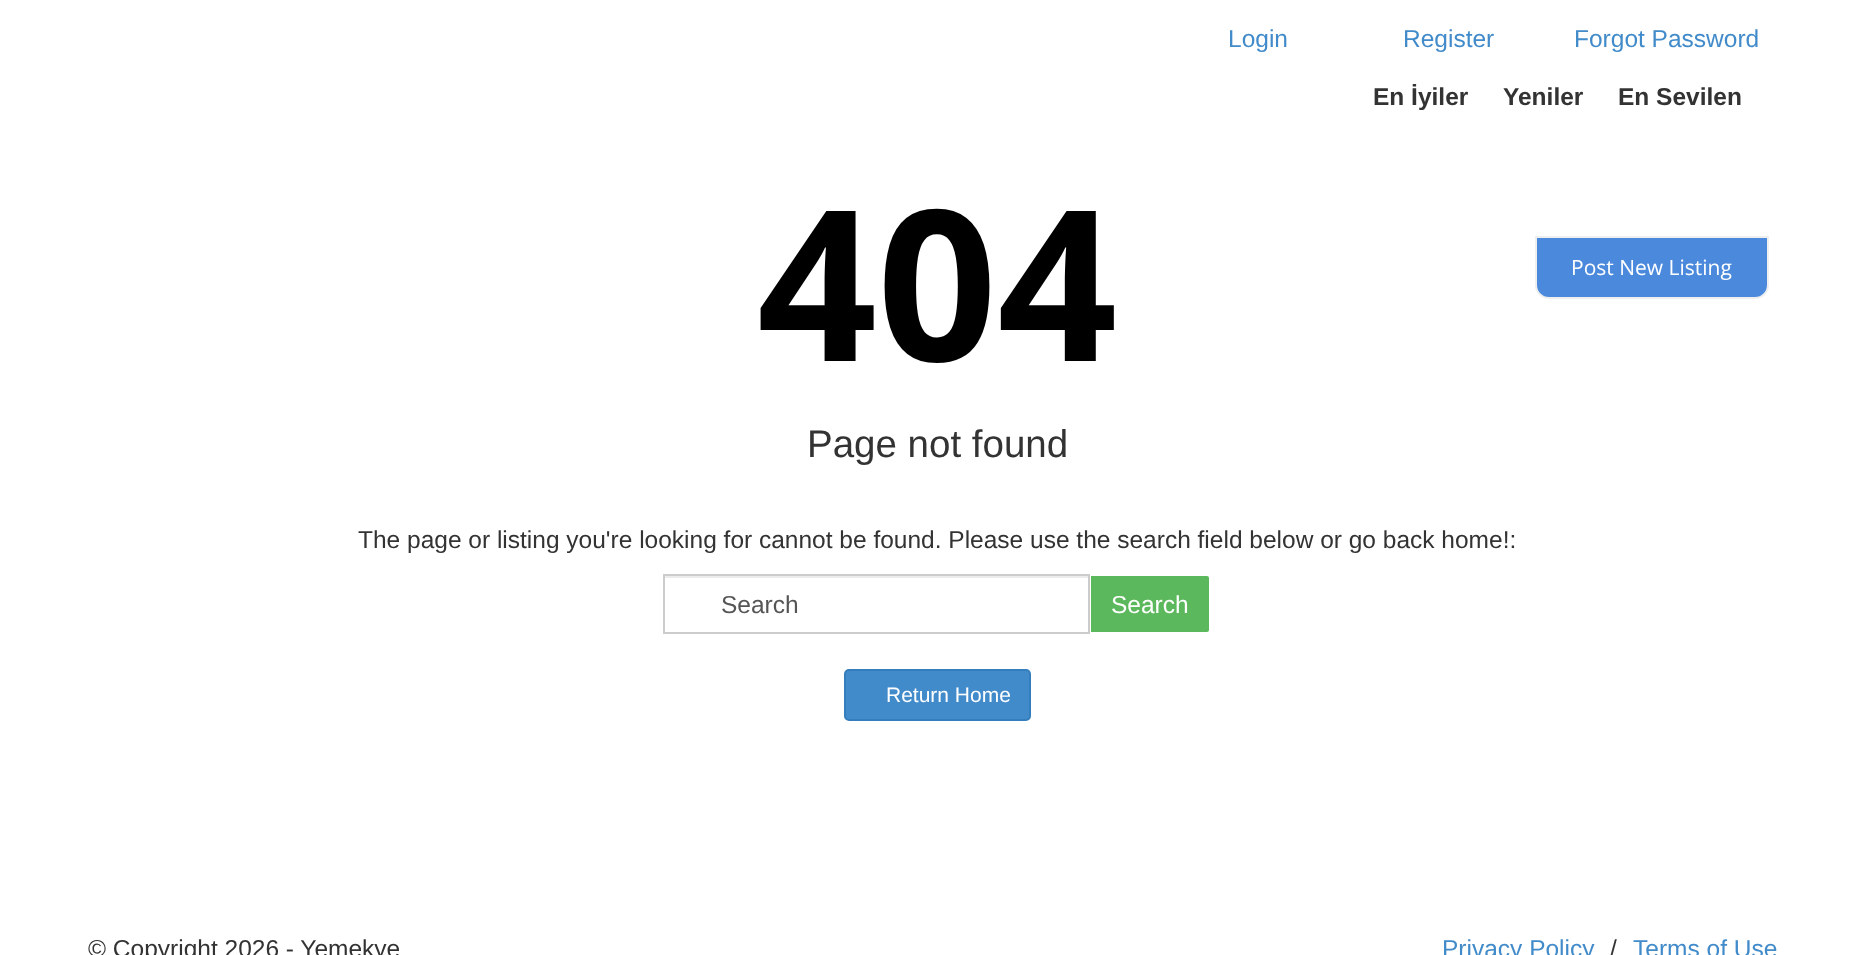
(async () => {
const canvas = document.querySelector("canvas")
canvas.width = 1873
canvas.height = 955
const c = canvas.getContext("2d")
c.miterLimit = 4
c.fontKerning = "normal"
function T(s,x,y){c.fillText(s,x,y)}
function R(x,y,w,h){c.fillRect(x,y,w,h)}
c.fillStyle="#fff"
R(0,0,1873,955)
c.font="24.5px Liberation Sans"
c.fillStyle="#428bca"
T("Login",1228,47)
T("Register",1403,47)
T("Forgot Password",1574,47)
c.font="bold 24.5px Liberation Sans"
c.fillStyle="#333"
T("En İyiler",1373,105)
T("Yeniler",1503,105)
T("En Sevilen",1618,105)
c.fillStyle="#4a89dc"
c.beginPath()
c.roundRect(1536,237,232,61,[0,0,13,13])
c.fill()
c.strokeStyle="#efefef"
c.lineWidth=2
c.stroke()
c.font="21px Open Sans"
c.fillStyle="#fff"
T("Post New Listing",1571,275)
c.font="bold 210px Open Sans"
c.fillStyle="#000"
T("404",757,361)
c.font="38.5px Liberation Sans"
c.fillStyle="#333"
T("Page not found",807,457)
c.font="24.5px Liberation Sans"
T("The page or listing you're looking for cannot be found. Please use the search field below or go back home!:",358,548)
c.fillStyle="#ececec"
R(665,576,424,2)
c.fillStyle="#5cb85c"
c.beginPath()
c.roundRect(1090,575,120,58,[0,3,3,0])
c.fill()
c.strokeStyle="#fff"
c.stroke()
c.strokeStyle="#ccc"
c.strokeRect(664,575,425,58)
c.fillStyle="#555"
T("Search",721,613)
c.fillStyle="#fff"
T("Search",1111,613)
c.fillStyle="#428bca"
c.beginPath()
c.roundRect(845,670,185,50,4)
c.fill()
c.strokeStyle="#357ebd"
c.stroke()
c.font="21px Liberation Sans"
c.fillStyle="#fff"
T("Return Home",886,702)
c.font="24.5px Liberation Sans"
c.fillStyle="#333"
T("© Copyright 2026 - Yemekye",88,957)
c.fillStyle="#428bca"
T("Privacy Policy",1442,957)
c.fillStyle="#333"
T("/",1610,957)
c.fillStyle="#428bca"
T("Terms of Use",1633,957)
})()
